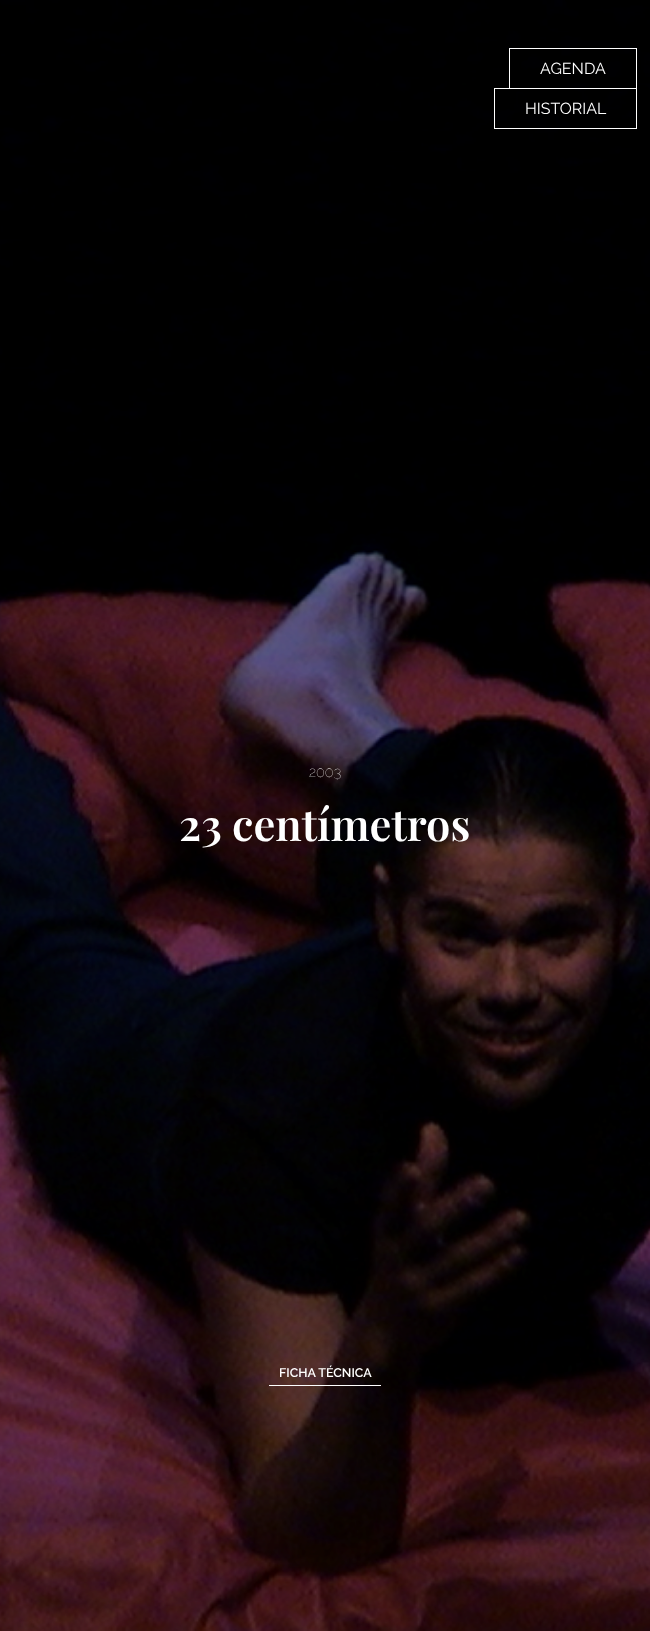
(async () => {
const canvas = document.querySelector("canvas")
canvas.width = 650
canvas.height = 1631
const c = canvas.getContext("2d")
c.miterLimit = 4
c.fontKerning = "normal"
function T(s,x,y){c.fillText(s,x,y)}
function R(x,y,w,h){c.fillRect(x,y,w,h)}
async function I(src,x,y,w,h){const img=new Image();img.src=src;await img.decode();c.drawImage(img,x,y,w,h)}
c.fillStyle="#fff"
R(0,0,650,1631)
await I("1.png",0,0,650,1631)
c.strokeStyle="#fff"
c.strokeRect(509.5,48.5,127,40)
c.font="16px Raleway"
T("AGENDA",540,74)
c.strokeRect(494.5,88.5,142,40)
T("HISTORIAL",525,114)
c.font="100 14.5px Raleway"
T("2003",309,777)
c.font="600 43.5px Playfair Display"
T("23 centímetros",179,841)
R(269,1385,112,1)
c.font="600 12.5px Raleway"
T("FICHA TÉCNICA",279,1377)
})()
